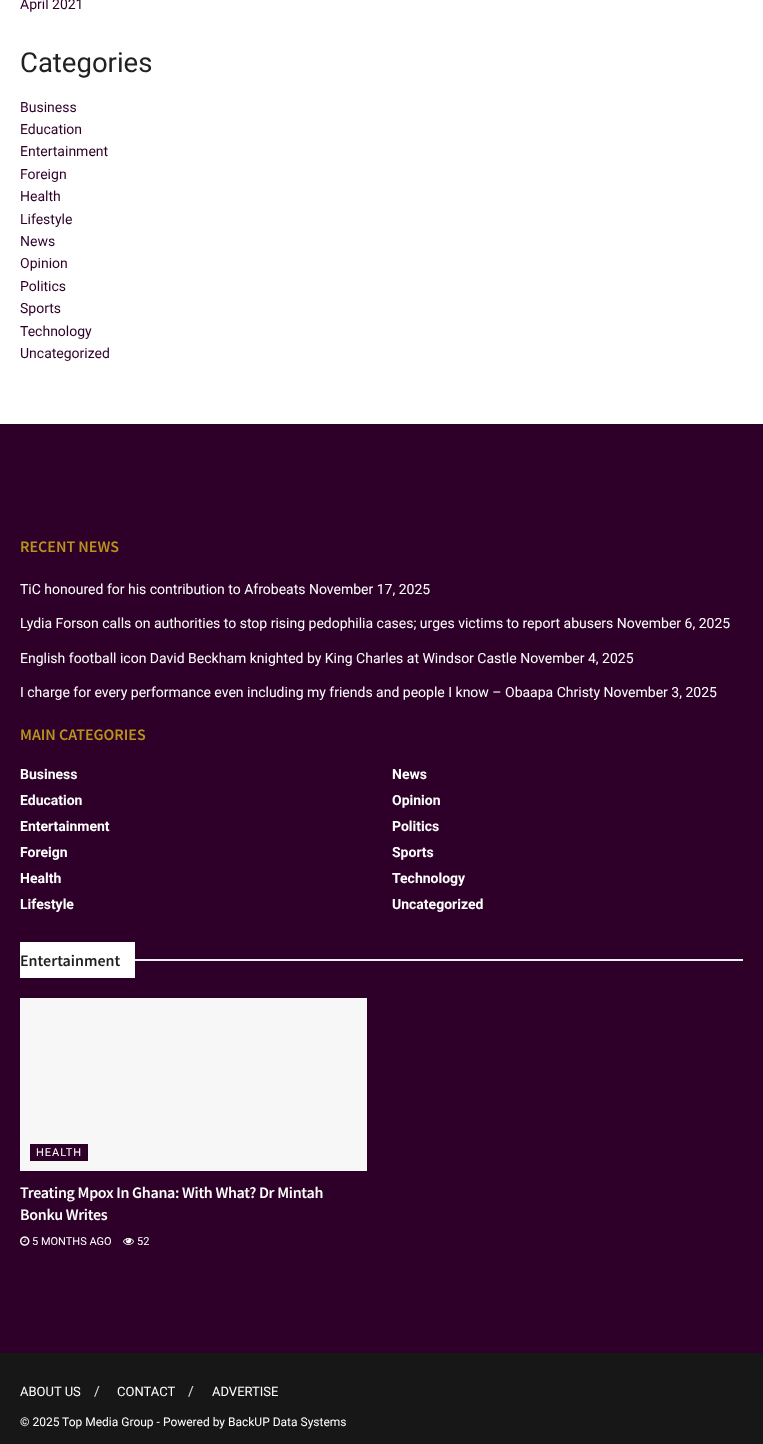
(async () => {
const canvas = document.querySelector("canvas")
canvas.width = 763
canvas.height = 1444
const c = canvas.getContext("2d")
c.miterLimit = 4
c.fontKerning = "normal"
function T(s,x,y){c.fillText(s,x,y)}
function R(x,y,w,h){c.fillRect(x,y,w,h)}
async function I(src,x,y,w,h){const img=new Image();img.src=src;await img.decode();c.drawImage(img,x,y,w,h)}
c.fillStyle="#fff"
R(0,0,763,1444)
c.font="14px Roboto"
c.fillStyle="#2e0029"
T("April 2021",20,9)
c.font="27.5px Roboto"
c.fillStyle="#212121"
T("Categories",20,72)
c.font="14px Roboto"
c.fillStyle="#2e0029"
T("Business",20,112)
T("Education",20,134)
T("Entertainment",20,156)
T("Foreign",20,179)
T("Health",20,201)
T("Lifestyle",20,224)
T("News",20,246)
T("Opinion",20,268)
T("Politics",20,291)
T("Sports",20,313)
T("Technology",20,336)
T("Uncategorized",20,358)
R(0,424,763,929)
c.font="600 16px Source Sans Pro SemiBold"
c.fillStyle="#b8931c"
T("RECENT NEWS",20,552)
c.font="14px Roboto"
c.fillStyle="#fff"
T("TiC honoured for his contribution to Afrobeats November 17, 2025",20,594)
T("Lydia Forson calls on authorities to stop rising pedophilia cases; urges victims to report abusers November 6, 2025",20,628)
T("English football icon David Beckham knighted by King Charles at Windsor Castle November 4, 2025",20,663)
T("I charge for every performance even including my friends and people I know – Obaapa Christy November 3, 2025",20,697)
c.font="600 16px Source Sans Pro SemiBold"
c.fillStyle="#b8931c"
T("MAIN CATEGORIES",20,740)
c.font="bold 14px Roboto"
c.fillStyle="#fff"
T("Business",20,779)
T("News",392,779)
T("Education",20,805)
T("Opinion",392,805)
T("Entertainment",20,831)
T("Politics",392,831)
T("Foreign",20,857)
T("Sports",392,857)
T("Health",20,883)
T("Technology",392,883)
T("Lifestyle",20,909)
T("Uncategorized",392,909)
R(20,942,115,36)
c.font="600 16px Source Sans Pro SemiBold"
c.fillStyle="#212121"
T("Entertainment",20,966)
c.fillStyle="#eee"
R(135,959,608,2)
c.fillStyle="#f7f7f7"
R(20,998,347,173)
c.fillStyle="#2e0029"
R(30,1144,58,17)
c.letterSpacing="1px"
c.font="11px Roboto"
c.fillStyle="#fff"
T("HEALTH",36,1156)
c.letterSpacing="-0.3px"
c.font="600 16px Source Sans Pro SemiBold"
T("Treating Mpox In Ghana: With What? Dr Mintah",20,1198)
T("Bonku Writes",20,1220)
await I("1.png",20,1236,10,10)
c.letterSpacing="0px"
c.font="11px Roboto"
T("5 MONTHS AGO",32,1245)
await I("2.png",123,1237,11,8)
T("52",137,1245)
c.fillStyle="#171717"
R(0,1353,763,91)
c.font="13px Roboto"
c.fillStyle="#fff"
T("ABOUT US",20,1396)
c.font="14px Roboto"
c.fillStyle="#e0e0e0"
T("/",94,1396)
c.font="13px Roboto"
c.fillStyle="#fff"
T("CONTACT",117,1396)
c.font="14px Roboto"
c.fillStyle="#e0e0e0"
T("/",188,1396)
c.font="13px Roboto"
c.fillStyle="#fff"
T("ADVERTISE",212,1396)
c.font="12px Roboto"
T("© 2025 Top Media Group - Powered by BackUP Data Systems",20,1426)
})()
